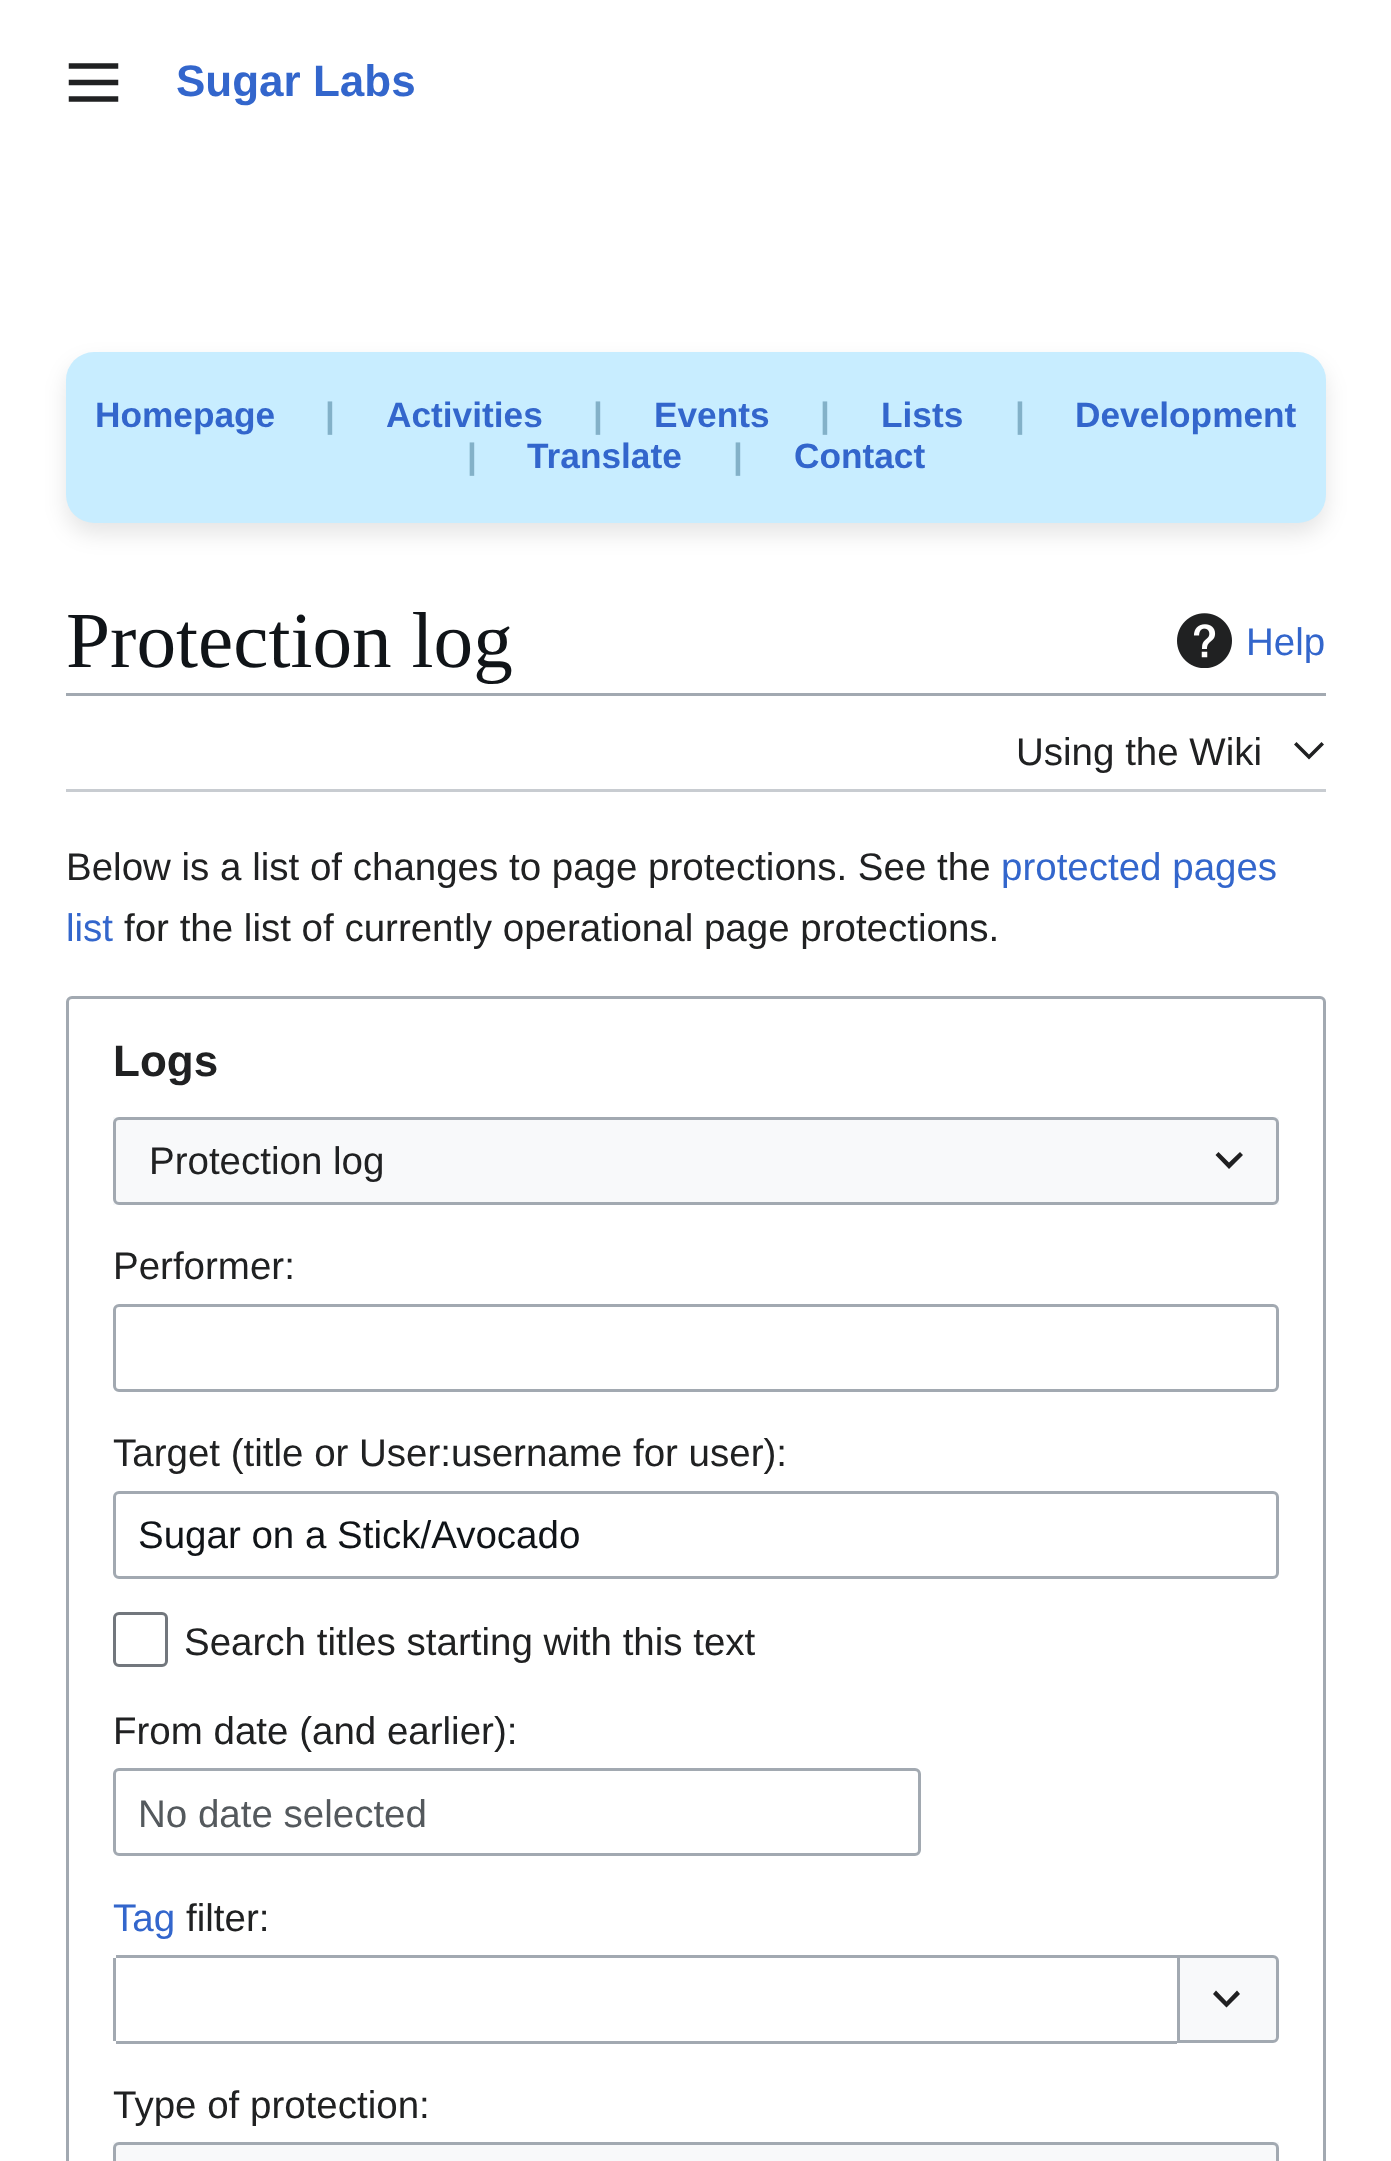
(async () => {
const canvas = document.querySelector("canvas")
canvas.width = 1391
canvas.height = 2161
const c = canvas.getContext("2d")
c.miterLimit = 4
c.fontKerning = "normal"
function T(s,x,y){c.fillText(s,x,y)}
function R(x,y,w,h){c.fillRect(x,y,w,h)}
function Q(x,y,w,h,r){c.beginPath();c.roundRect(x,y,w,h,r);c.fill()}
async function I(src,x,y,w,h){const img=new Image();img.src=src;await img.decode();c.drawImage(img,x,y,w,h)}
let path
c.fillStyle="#fff"
R(0,0,1391,2161)
await I("1.png",68,63,51,39)
c.font="bold 44px Liberation Sans"
c.fillStyle="#36c"
T("Sugar Labs",176,96)
c.fillStyle="#0000001a"
c.filter="blur(11px)"
c.beginPath()
c.roundRect(66,363,1260,171,28)
c.fill()
c.filter="none"
c.fillStyle="#c8edff"
Q(66,352,1260,171,28)
c.font="bold 35.25px Liberation Sans"
c.fillStyle="#36c"
T("Homepage",95,427)
c.fillStyle="#83b1c8"
T("|",325,427)
c.fillStyle="#36c"
T("Activities",386,427)
c.fillStyle="#83b1c8"
T("|",593,427)
c.fillStyle="#36c"
T("Events",654,427)
c.fillStyle="#83b1c8"
T("|",820,427)
c.fillStyle="#36c"
T("Lists",881,427)
c.fillStyle="#83b1c8"
T("|",1015,427)
c.fillStyle="#36c"
T("Development",1075,427)
c.fillStyle="#83b1c8"
T("|",467,468)
c.fillStyle="#36c"
T("Translate",527,468)
c.fillStyle="#83b1c8"
T("|",733,468)
c.fillStyle="#36c"
T("Contact",794,468)
c.font="79.25px Liberation Serif"
c.fillStyle="#101418"
T("Protection log",66,667)
await I("2.png",1177,613,55,55)
c.font="38.5px Liberation Sans"
c.fillStyle="#36c"
T("Help",1246,655)
c.fillStyle="#a2a9b1"
R(66,693,1260,3)
c.fillStyle="#c8ccd1"
path = new Path2D("M66 789v3h1260v-93v90z")
c.fill(path)
c.fillStyle="#202122"
T("Using the Wiki",1016,765)
path = new Path2D("M1321.5 742l-12.5 12.5l-12.5-12.5l-2.5 2.5l15 15l15-15z")
c.fill(path)
T("Below is a list of changes to page protections. See the",66,880)
c.fillStyle="#36c"
T("protected pages",1001,880)
T("list",66,941)
c.fillStyle="#202122"
T("for the list of currently operational page protections.",124,941)
c.beginPath()
c.roundRect(67.5,997.5,1257,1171,4.5)
c.strokeStyle="#a2a9b1"
c.lineWidth=3
c.stroke()
c.font="bold 44px Liberation Sans"
T("Logs",113,1076)
c.fillStyle="#f8f9fa"
R(113,1117,1166,88)
c.beginPath()
c.roundRect(114.5,1118.5,1163,85,4.5)
c.stroke()
c.font="38.5px Liberation Sans"
c.fillStyle="#202122"
T("Protection log",149,1174)
c.fillStyle="#202021"
path = new Path2D("M1240 1152l-11 10.5l-10.5-10.5l-3 3l13.5 14l14-14z")
c.fill(path)
c.fillStyle="#202122"
T("Performer:",113,1279)
c.beginPath()
c.roundRect(114.5,1305.5,1163,85,4.5)
c.stroke()
T("Target (title or User:username for user):",113,1466)
c.beginPath()
c.roundRect(114.5,1492.5,1163,85,4.5)
c.stroke()
c.fillStyle="#101418"
T("Sugar on a Stick/Avocado",138,1548)
c.beginPath()
c.roundRect(114.5,1613.5,52,52,4.5)
c.strokeStyle="#72777d"
c.stroke()
c.fillStyle="#202122"
T("Search titles starting with this text",184,1655)
T("From date (and earlier):",113,1744)
c.beginPath()
c.roundRect(114.5,1769.5,805,85,4.5)
c.strokeStyle="#a2a9b1"
c.stroke()
c.fillStyle="#54595d"
T("No date selected",138,1827)
c.fillStyle="#36c"
T("Tag",113,1931)
c.fillStyle="#202122"
T("filter:",186,1931)
c.fillStyle="#a2a9b1"
R(116,1955,1061,3)
R(116,2041,1061,3)
R(113,1958,3,83)
c.fillStyle="#f8f9fa"
c.beginPath()
c.roundRect(1178.5,1956.5,99,85,[0,4.5,4.5,0])
c.fill()
c.stroke()
c.fillStyle="#202021"
path = new Path2D("M1237 1990.5l-10.5 11l-10.5-11l-3 3.5l13.5 13.5l13.5-13.5z")
c.fill(path)
c.fillStyle="#202122"
T("Type of protection:",113,2118)
c.fillStyle="#f8f9fa"
R(113,2142,1166,19)
c.beginPath()
c.roundRect(114.5,2143.5,1163,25,4.5)
c.stroke()
})()
